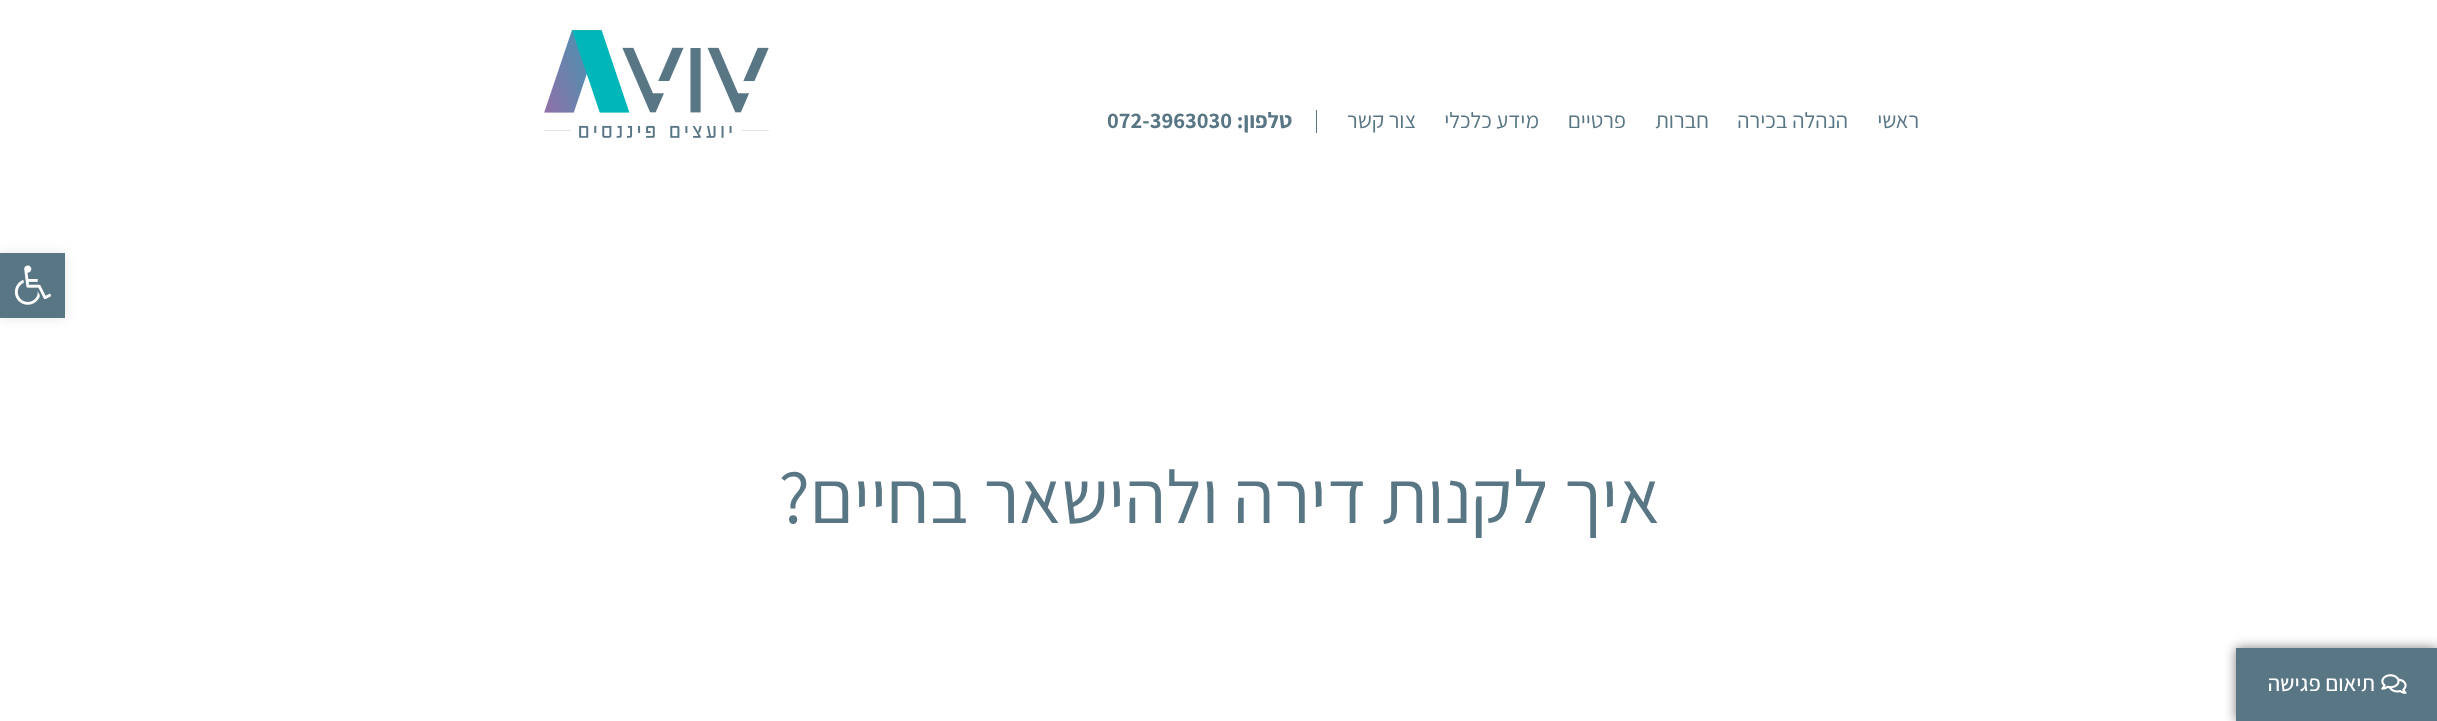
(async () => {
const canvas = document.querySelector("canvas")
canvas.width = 2437
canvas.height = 721
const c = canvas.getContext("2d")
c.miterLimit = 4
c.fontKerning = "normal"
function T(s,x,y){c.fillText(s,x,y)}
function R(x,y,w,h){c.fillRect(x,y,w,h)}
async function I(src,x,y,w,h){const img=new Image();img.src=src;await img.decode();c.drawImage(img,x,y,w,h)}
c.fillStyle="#fff"
R(0,0,2437,721)
c.direction="rtl"
c.font="22.5px Assistant"
c.fillStyle="#597685"
T("ראשי",1919,128)
T("הנהלה בכירה",1848,128)
T("חברות",1709,128)
T("פרטיים",1626,128)
T("מידע כלכלי",1539,128)
T("צור קשר",1416,128)
R(1316,110,1,23)
c.font="bold 22.5px Assistant"
T("טלפון:",1292,128)
c.direction="ltr"
T("072-3963030",1107,128)
await I("1.png",544,30,225,108)
c.fillStyle="#00000080"
c.filter="blur(6px)"
c.beginPath()
c.rect(2236,648,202,73)
c.fill()
c.filter="none"
c.fillStyle="#597685"
R(2236,648,201,73)
await I("2.png",2381,674,26,20)
c.direction="rtl"
c.font="500 22.5px Assistant"
c.fillStyle="#fff"
T("תיאום פגישה",2375,691)
c.fillStyle="#0000001a"
c.filter="blur(6px)"
c.beginPath()
c.rect(0,253,65,65)
c.fill()
c.filter="none"
c.fillStyle="#597685"
R(0,253,65,65)
await I("3.png",14,265,38,40)
c.font="75px Assistant"
T("איך לקנות דירה ולהישאר בחיים?",1660,523)
})()
